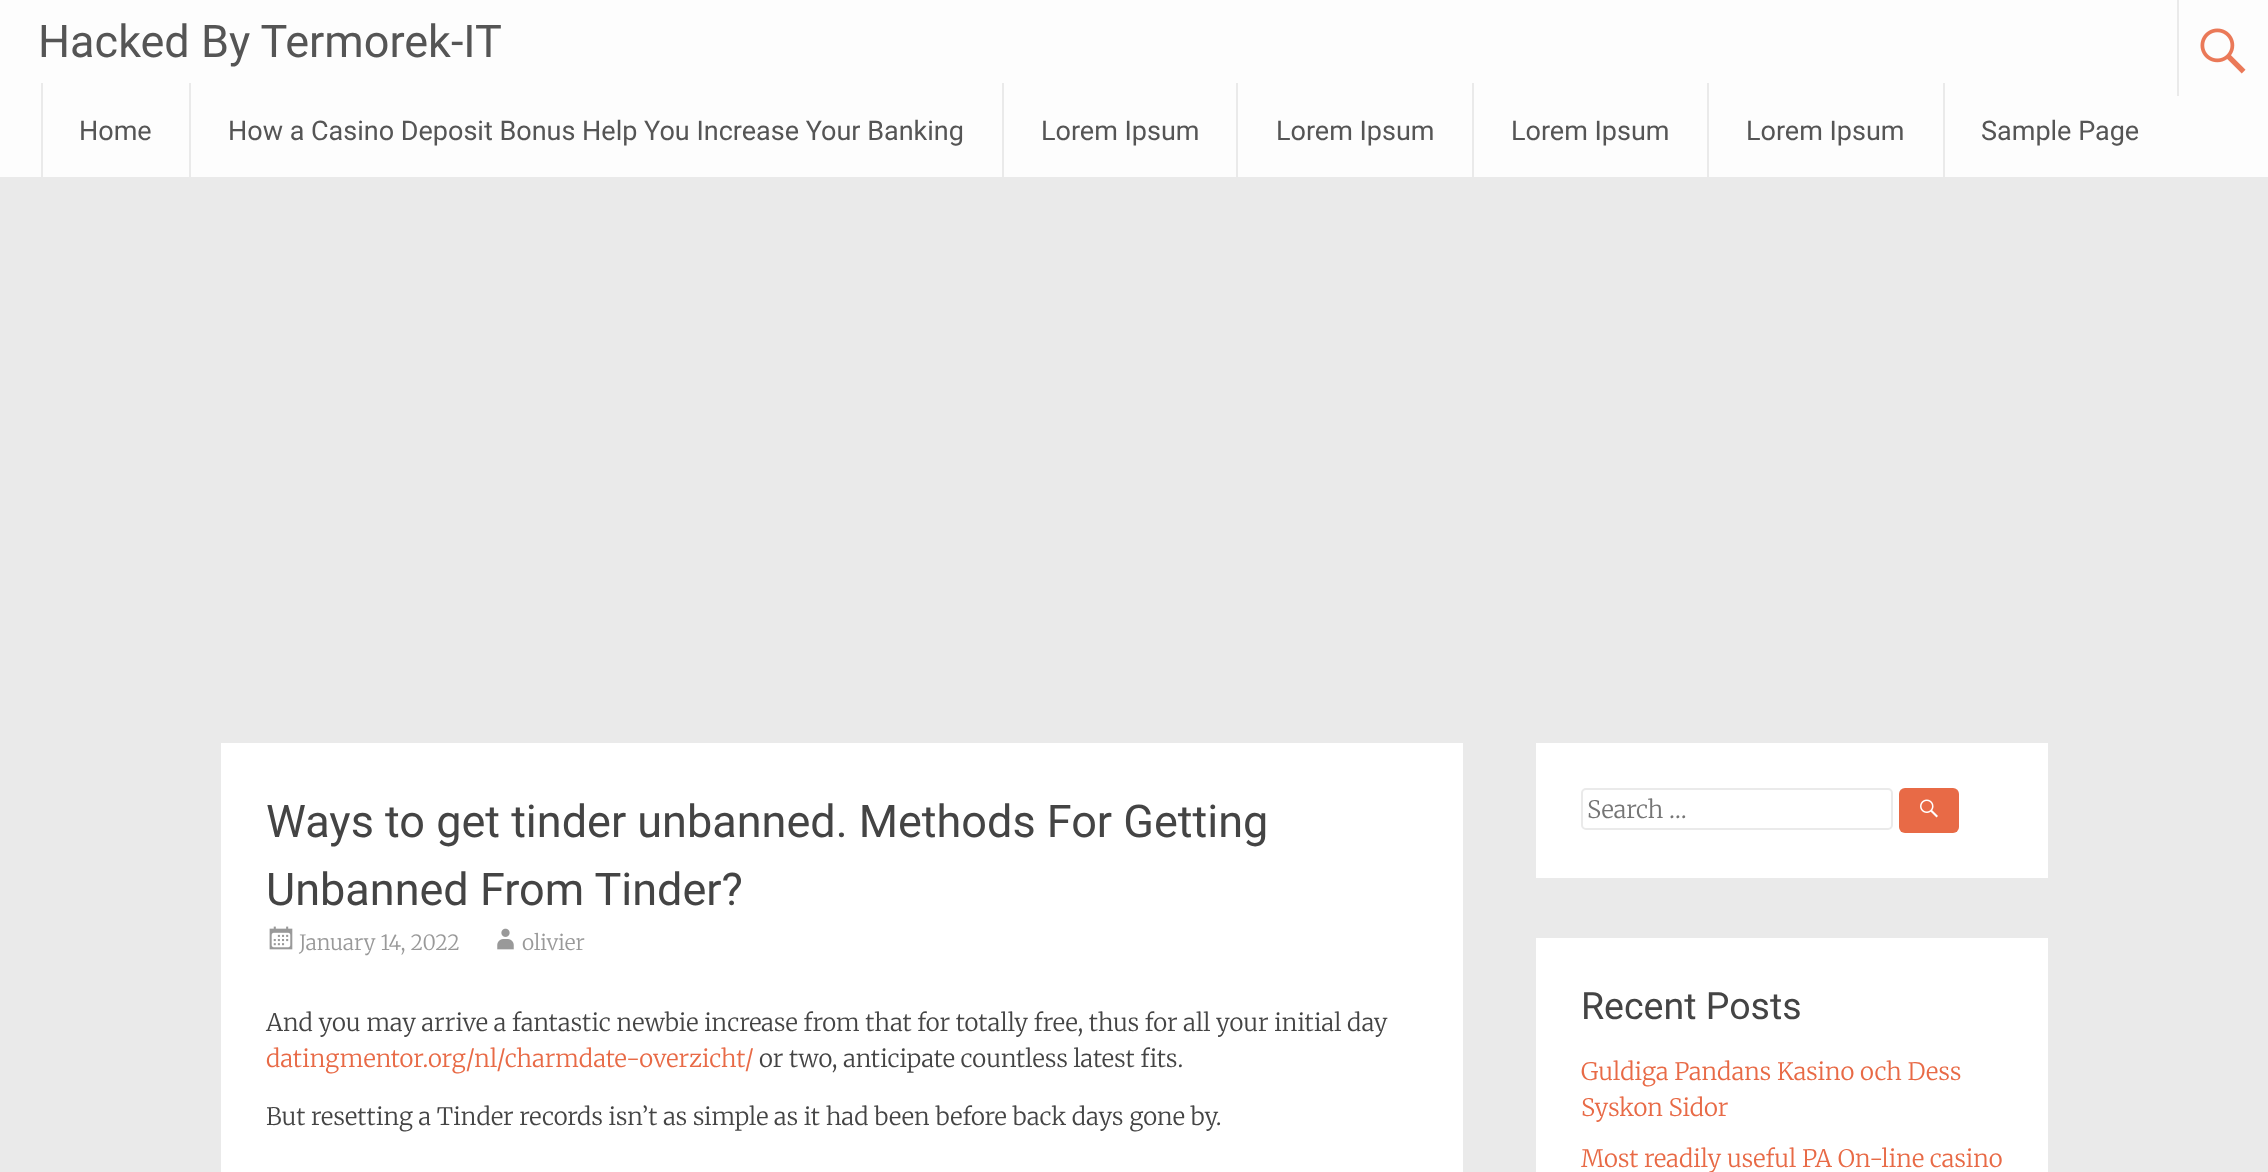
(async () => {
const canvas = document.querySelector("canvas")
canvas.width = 2268
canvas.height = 1172
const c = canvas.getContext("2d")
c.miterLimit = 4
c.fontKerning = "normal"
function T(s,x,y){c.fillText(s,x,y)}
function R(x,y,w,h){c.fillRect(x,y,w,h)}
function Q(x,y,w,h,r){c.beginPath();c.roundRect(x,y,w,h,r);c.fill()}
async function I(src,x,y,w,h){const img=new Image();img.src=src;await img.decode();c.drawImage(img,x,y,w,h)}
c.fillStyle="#eaeaea"
R(0,0,2268,1172)
c.fillStyle="#fdfdfd"
R(0,0,2268,177)
c.font="45px Roboto"
c.fillStyle="#555"
T("Hacked By Termorek-IT",38,57)
c.fillStyle="#eaeaea"
R(2177,0,2,96)
await I("1.png",2200,28,46,46)
R(41,83,2,94)
c.font="27px Roboto"
c.fillStyle="#555"
T("Home",79,140)
c.fillStyle="#eaeaea"
R(189,83,2,94)
c.fillStyle="#555"
T("How a Casino Deposit Bonus Help You Increase Your Banking",228,140)
c.fillStyle="#eaeaea"
R(1002,83,2,94)
c.fillStyle="#555"
T("Lorem Ipsum",1041,140)
c.fillStyle="#eaeaea"
R(1236,83,2,94)
c.fillStyle="#555"
T("Lorem Ipsum",1276,140)
c.fillStyle="#eaeaea"
R(1472,83,2,94)
c.fillStyle="#555"
T("Lorem Ipsum",1511,140)
c.fillStyle="#eaeaea"
R(1707,83,2,94)
c.fillStyle="#555"
T("Lorem Ipsum",1746,140)
c.fillStyle="#eaeaea"
R(1943,83,2,94)
c.fillStyle="#555"
T("Sample Page",1981,140)
c.fillStyle="#fff"
R(221,743,1242,429)
c.font="45px Roboto"
c.fillStyle="#444"
T("Ways to get tinder unbanned. Methods For Getting",266,837)
T("Unbanned From Tinder?",266,905)
await I("2.png",269,926,24,24)
c.font="300 21px Merriweather"
c.fillStyle="#999"
T("January 14, 2022",299,950)
await I("3.png",497,928,17,22)
T("olivier",522,950)
c.font="300 24px Merriweather"
c.fillStyle="#444"
T("And you may arrive a fantastic newbie increase from that for totally free, thus for all your initial day",266,1031)
c.fillStyle="#e86a46"
T("datingmentor.org/nl/charmdate-overzicht/",266,1067)
c.fillStyle="#444"
T("or two, anticipate countless latest fits.",759,1067)
T("But resetting a Tinder records isn’t as simple as it had been before back days gone by.",266,1125)
c.fillStyle="#fff"
R(1536,743,512,135)
c.beginPath()
c.roundRect(1582,789,310,40,4)
c.strokeStyle="#eaeaea"
c.lineWidth=2
c.stroke()
c.fillStyle="#757575"
T("Search …",1587,818)
c.fillStyle="#e86a46"
Q(1899,788,60,45,6)
await I("4.png",1920,799,18,19)
c.fillStyle="#fff"
R(1536,938,512,234)
c.font="37.5px Roboto"
c.fillStyle="#444"
T("Recent Posts",1581,1019)
c.font="300 24px Merriweather"
c.fillStyle="#e86a46"
T("Guldiga Pandans Kasino och Dess",1581,1080)
T("Syskon Sidor",1581,1116)
T("Most readily useful PA On-line casino",1581,1167)
})()
